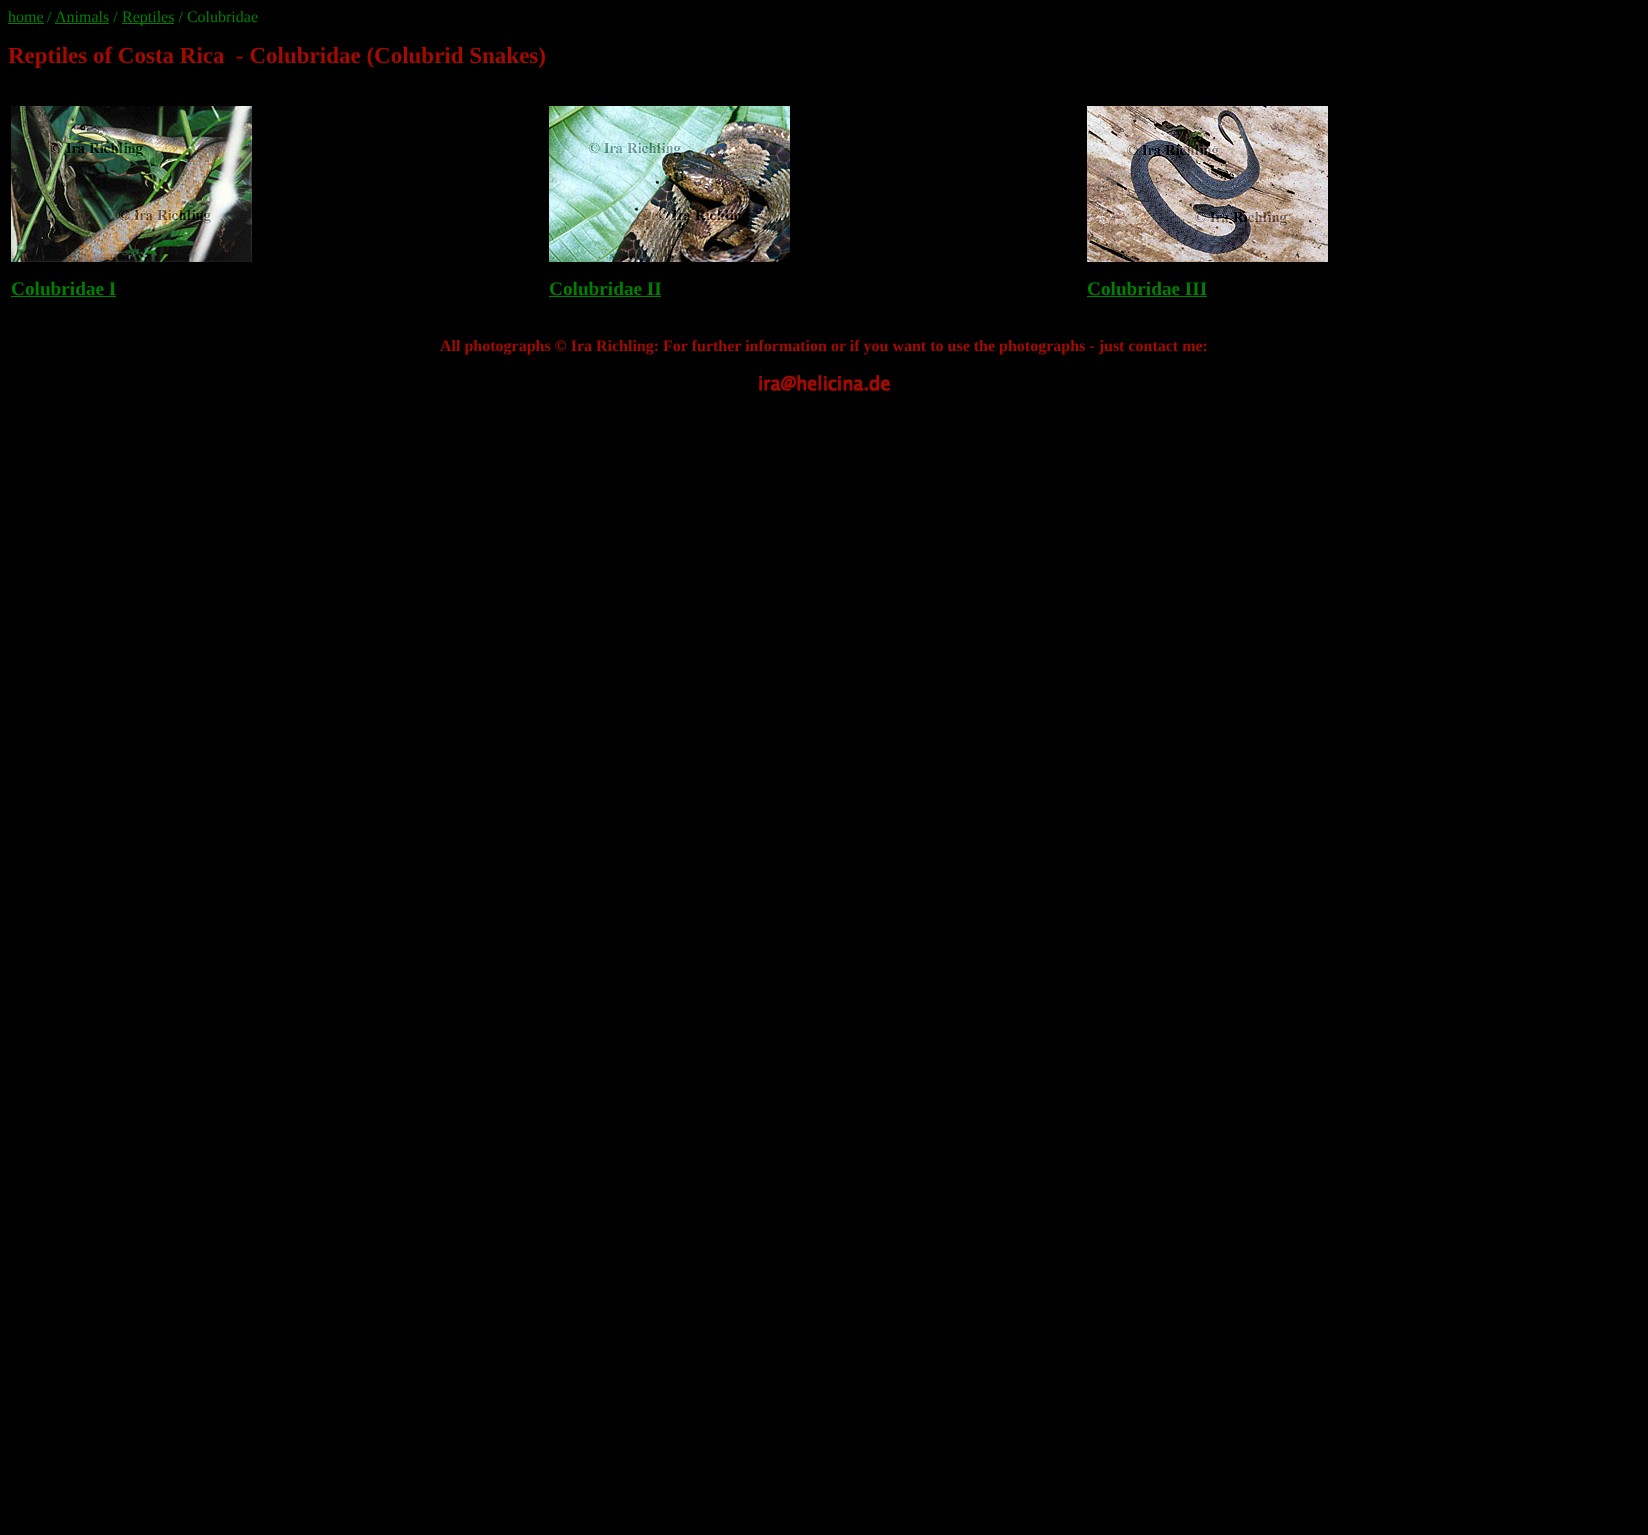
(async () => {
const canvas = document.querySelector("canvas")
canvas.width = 1648
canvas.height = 1535
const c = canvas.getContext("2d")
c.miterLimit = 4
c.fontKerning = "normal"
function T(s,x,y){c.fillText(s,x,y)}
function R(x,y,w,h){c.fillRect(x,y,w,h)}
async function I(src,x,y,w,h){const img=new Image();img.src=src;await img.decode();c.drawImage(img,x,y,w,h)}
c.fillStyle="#000"
R(0,0,1648,1535)
c.font="16px Liberation Serif"
c.fillStyle="#008000"
T("home",8,22)
R(8,23,36,1)
T("/",47,22)
T("Animals /",55,22)
R(55,23,54,1)
R(122,23,52,1)
T("Reptiles / Colubridae",122,22)
c.font="bold 23px Liberation Serif"
c.fillStyle="#a50a00"
T("Reptiles of Costa Rica  - Colubridae (Colubrid Snakes)",8,63)
await I("1.png",11,106,241,156)
c.font="bold 19.25px Liberation Serif"
c.fillStyle="#008000"
T("Colubridae I",11,295)
R(11,296,105,1)
await I("2.png",549,106,241,156)
T("Colubridae II",549,295)
R(549,296,112,1)
await I("3.png",1087,106,241,156)
T("Colubridae III",1087,295)
R(1087,296,120,1)
c.font="bold 16px Liberation Serif"
c.fillStyle="#a50a00"
T("All photographs © Ira Richling: For further information or if you want to use the photographs - just contact me:",440,351)
await I("4.png",759,375,131,16)
})()
